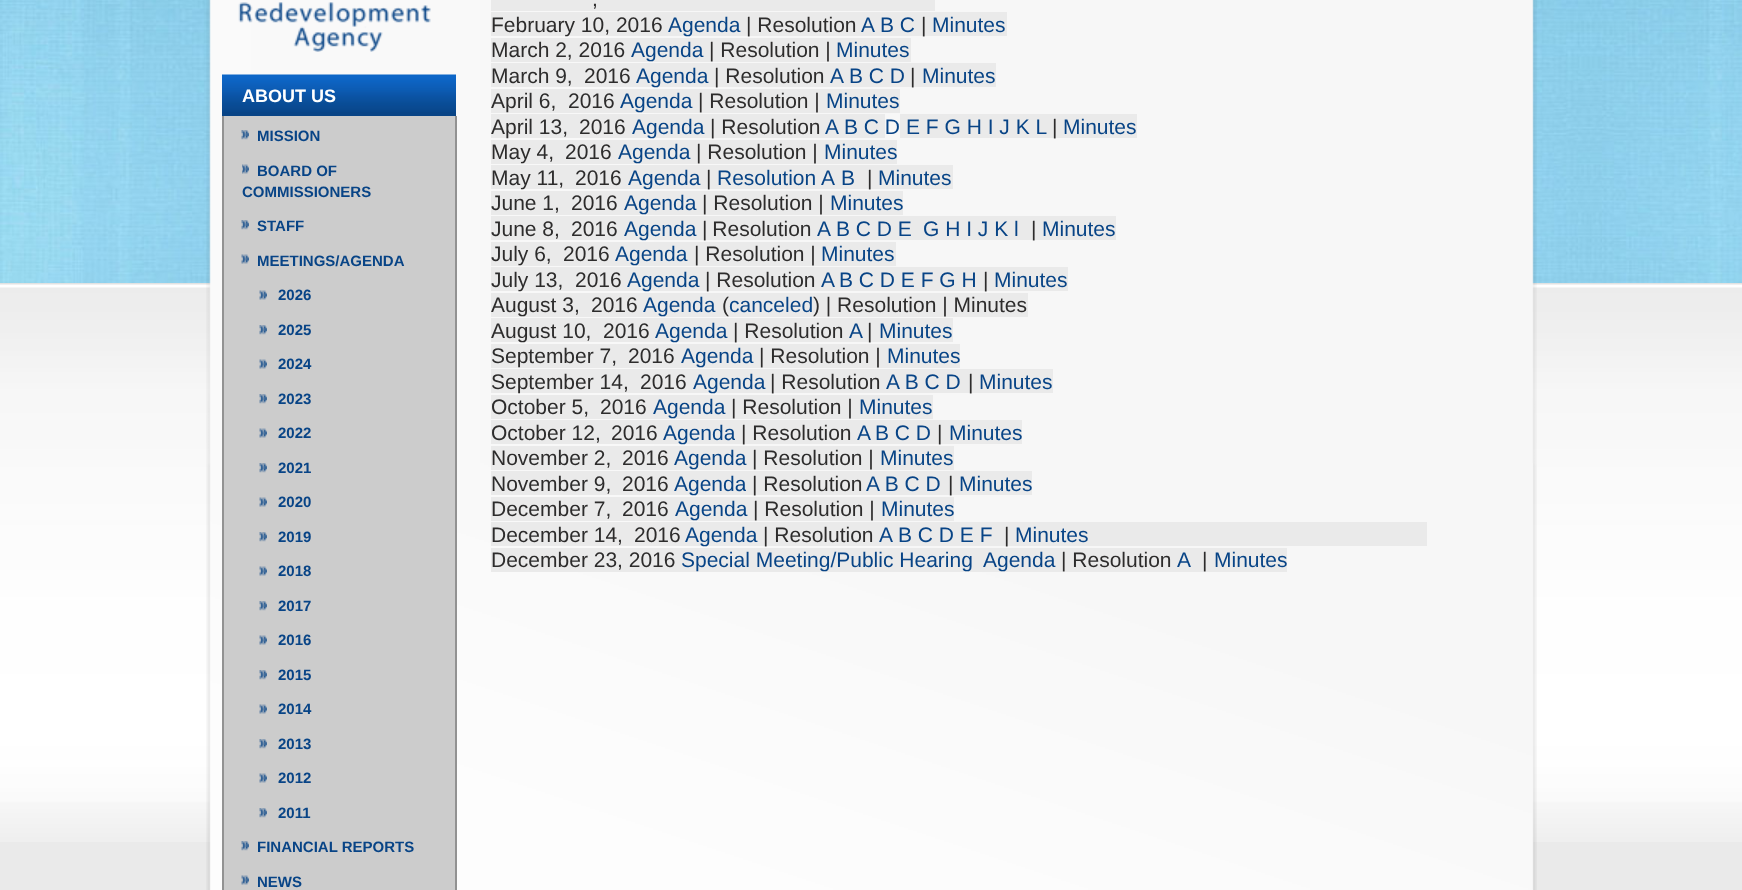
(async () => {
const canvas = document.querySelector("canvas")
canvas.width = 1742
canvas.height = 890
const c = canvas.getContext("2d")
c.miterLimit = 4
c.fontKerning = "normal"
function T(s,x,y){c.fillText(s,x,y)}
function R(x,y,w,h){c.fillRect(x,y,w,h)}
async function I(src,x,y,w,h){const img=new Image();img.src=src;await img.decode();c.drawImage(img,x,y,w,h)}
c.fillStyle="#fff"
R(0,0,1742,890)
await I("1.png",0,0,1742,283)
c.fillStyle="#eaeaea"
R(0,842,1742,48)
await I("2.png",0,283,1742,559)
await I("3.png",206,463,1331,427)
await I("4.png",206,0,1331,463)
await I("5.png",238,2,193,50)
c.fillStyle="#084486"
R(222,112,234,4)
await I("6.png",222,74,234,38)
c.font="bold 18px Liberation Sans"
c.fillStyle="#fff"
T("ABOUT US",242,102)
c.fillStyle="#ccc"
R(224,116,231,774)
c.fillStyle="#929292"
R(455,116,2,774)
R(222,116,2,774)
await I("7.png",241,130,8,10)
c.font="bold 15px Liberation Sans"
c.fillStyle="#084486"
T("MISSION",257,141)
await I("8.png",242,164,7,10)
T("BOARD OF",257,176)
T("COMMISSIONERS",242,197)
await I("7.png",241,220,8,10)
T("STAFF",257,231)
await I("9.png",241,254,8,10)
T("MEETINGS/AGENDA",257,266)
await I("9.png",259,290,8,10)
T("2026",278,300)
await I("7.png",259,325,8,10)
T("2025",278,335)
await I("9.png",259,359,8,10)
T("2024",278,369)
await I("7.png",259,394,8,10)
T("2023",278,404)
await I("9.png",259,428,8,10)
T("2022",278,438)
await I("7.png",259,463,8,10)
T("2021",278,473)
await I("9.png",259,497,8,10)
T("2020",278,507)
await I("7.png",259,532,8,10)
T("2019",278,542)
await I("9.png",259,566,8,10)
T("2018",278,576)
await I("7.png",259,601,8,10)
T("2017",278,611)
await I("9.png",259,635,8,10)
T("2016",278,645)
await I("7.png",259,670,8,10)
T("2015",278,680)
await I("9.png",259,704,8,10)
T("2014",278,714)
await I("7.png",259,739,8,10)
T("2013",278,749)
await I("9.png",259,773,8,10)
T("2012",278,783)
await I("7.png",259,808,8,10)
T("2011",278,818)
await I("7.png",241,841,8,10)
T("FINANCIAL REPORTS",257,852)
await I("9.png",241,875,8,10)
T("NEWS",257,887)
c.fillStyle="#eaeaea"
R(491,0,444,11)
c.font="21px Liberation Sans"
c.fillStyle="#2d2c2c"
T(",",592,6)
c.fillStyle="#eaeaea"
R(491,12,516,24)
c.fillStyle="#2d2c2c"
T("February 10, 2016",491,32)
c.fillStyle="#084486"
T("Agenda",668,32)
c.fillStyle="#2d2c2c"
T("| Resolution",746,32)
c.fillStyle="#084486"
T("A",861,32)
T("B C",880,32)
c.fillStyle="#2d2c2c"
T("|",921,32)
c.fillStyle="#084486"
T("Minutes",932,32)
c.fillStyle="#eaeaea"
R(491,38,420,24)
c.fillStyle="#2d2c2c"
T("March 2, 2016",491,57)
c.fillStyle="#084486"
T("Agenda",631,57)
c.fillStyle="#2d2c2c"
T("| Resolution |",709,57)
c.fillStyle="#084486"
T("Minutes",836,57)
c.fillStyle="#eaeaea"
R(491,63,505,24)
c.fillStyle="#2d2c2c"
T("March 9,",491,83)
T("2016",584,83)
c.fillStyle="#084486"
T("Agenda",636,83)
c.fillStyle="#2d2c2c"
T("| Resolution",714,83)
c.fillStyle="#084486"
T("A",830,83)
T("B C D",849,83)
c.fillStyle="#2d2c2c"
T("|",910,83)
c.fillStyle="#084486"
T("Minutes",922,83)
c.fillStyle="#eaeaea"
R(491,89,409,24)
c.fillStyle="#2d2c2c"
T("April 6,",491,108)
T("2016",568,108)
c.fillStyle="#084486"
T("Agenda",620,108)
c.fillStyle="#2d2c2c"
T("| Resolution |",698,108)
c.fillStyle="#084486"
T("Minutes",826,108)
c.fillStyle="#eaeaea"
R(491,114,394,24)
c.fillStyle="#2d2c2c"
T("April 13,",491,134)
T("2016",579,134)
c.fillStyle="#084486"
T("Agenda",632,134)
c.fillStyle="#2d2c2c"
T("| Resolution",710,134)
c.fillStyle="#084486"
T("A",825,134)
T("B C D",844,134)
c.fillStyle="#eaeaea"
R(900,114,237,24)
c.fillStyle="#084486"
T("E F G H I J K L",906,134)
c.fillStyle="#2d2c2c"
T("|",1052,134)
c.fillStyle="#084486"
T("Minutes",1063,134)
c.fillStyle="#eaeaea"
R(491,140,406,24)
c.fillStyle="#2d2c2c"
T("May 4,",491,159)
T("2016",565,159)
c.fillStyle="#084486"
T("Agenda",618,159)
c.fillStyle="#2d2c2c"
T("| Resolution |",696,159)
c.fillStyle="#084486"
T("Minutes",824,159)
c.fillStyle="#eaeaea"
R(491,165,462,24)
c.fillStyle="#2d2c2c"
T("May 11,",491,185)
T("2016",575,185)
c.fillStyle="#084486"
T("Agenda",628,185)
c.fillStyle="#2d2c2c"
T("|",706,185)
c.fillStyle="#084486"
T("Resolution A",717,185)
T("B",841,185)
c.fillStyle="#2d2c2c"
T("|",867,185)
c.fillStyle="#084486"
T("Minutes",878,185)
c.fillStyle="#eaeaea"
R(491,191,412,24)
c.fillStyle="#2d2c2c"
T("June 1,",491,210)
T("2016",571,210)
c.fillStyle="#084486"
T("Agenda",624,210)
c.fillStyle="#2d2c2c"
T("| Resolution |",702,210)
c.fillStyle="#084486"
T("Minutes",830,210)
c.fillStyle="#eaeaea"
R(491,216,625,24)
c.fillStyle="#2d2c2c"
T("June 8,",491,236)
T("2016",571,236)
c.fillStyle="#084486"
T("Agenda",624,236)
c.wordSpacing="-1px"
c.fillStyle="#2d2c2c"
T("| Resolution",702,236)
c.wordSpacing="0px"
c.fillStyle="#084486"
T("A",817,236)
T("B C D E",836,236)
T("G H I J K l",923,236)
c.fillStyle="#2d2c2c"
T("|",1031,236)
c.fillStyle="#084486"
T("Minutes",1042,236)
c.fillStyle="#eaeaea"
R(491,242,405,24)
c.fillStyle="#2d2c2c"
T("July 6,",491,261)
T("2016",563,261)
c.fillStyle="#084486"
T("Agenda",615,261)
c.fillStyle="#2d2c2c"
T("| Resolution |",694,261)
c.fillStyle="#084486"
T("Minutes",821,261)
c.fillStyle="#eaeaea"
R(491,267,577,24)
c.fillStyle="#2d2c2c"
T("July 13,",491,287)
T("2016",575,287)
c.fillStyle="#084486"
T("Agenda",627,287)
c.fillStyle="#2d2c2c"
T("| Resolution",705,287)
c.fillStyle="#084486"
T("A",821,287)
T("B C D E F G H",839,287)
c.fillStyle="#2d2c2c"
T("|",983,287)
c.fillStyle="#084486"
T("Minutes",994,287)
c.fillStyle="#eaeaea"
R(491,293,537,24)
c.fillStyle="#2d2c2c"
T("August 3,",491,312)
T("2016",591,312)
c.fillStyle="#084486"
T("Agenda",643,312)
c.fillStyle="#2d2c2c"
T("(",722,312)
c.fillStyle="#084486"
T("canceled",729,312)
c.fillStyle="#2d2c2c"
T(") | Resolution | Minutes",813,312)
c.fillStyle="#eaeaea"
R(491,318,462,24)
c.fillStyle="#2d2c2c"
T("August 10,",491,338)
T("2016",603,338)
c.fillStyle="#084486"
T("Agenda",655,338)
c.fillStyle="#2d2c2c"
T("| Resolution",733,338)
c.fillStyle="#084486"
T("A",849,338)
c.fillStyle="#2d2c2c"
T("|",867,338)
c.fillStyle="#084486"
T("Minutes",879,338)
c.fillStyle="#eaeaea"
R(491,344,469,24)
c.fillStyle="#2d2c2c"
T("September 7,",491,363)
T("2016",628,363)
c.fillStyle="#084486"
T("Agenda",681,363)
c.fillStyle="#2d2c2c"
T("| Resolution |",759,363)
c.fillStyle="#084486"
T("Minutes",887,363)
c.fillStyle="#eaeaea"
R(491,369,562,24)
c.fillStyle="#2d2c2c"
T("September 14,",491,389)
T("2016",640,389)
c.fillStyle="#084486"
T("Agenda",693,389)
c.fillStyle="#2d2c2c"
T("| Resolution",770,389)
c.fillStyle="#084486"
T("A B C D",886,389)
c.fillStyle="#2d2c2c"
T("|",968,389)
c.fillStyle="#084486"
T("Minutes",979,389)
c.fillStyle="#eaeaea"
R(491,395,442,24)
c.fillStyle="#2d2c2c"
T("October 5,",491,414)
T("2016",600,414)
c.fillStyle="#084486"
T("Agenda",653,414)
c.fillStyle="#2d2c2c"
T("| Resolution |",731,414)
c.fillStyle="#084486"
T("Minutes",859,414)
c.fillStyle="#eaeaea"
R(491,420,244,24)
c.fillStyle="#2d2c2c"
T("October 12,",491,440)
T("2016",611,440)
c.fillStyle="#084486"
T("Agenda",663,440)
c.fillStyle="#eaeaea"
R(735,420,287,24)
c.fillStyle="#2d2c2c"
T("| Resolution",741,440)
c.fillStyle="#084486"
T("A",857,440)
T("B C D",875,440)
c.fillStyle="#2d2c2c"
T("|",937,440)
c.fillStyle="#084486"
T("Minutes",949,440)
c.fillStyle="#eaeaea"
R(491,446,463,24)
c.fillStyle="#2d2c2c"
T("November 2,",491,465)
T("2016",622,465)
c.fillStyle="#084486"
T("Agenda",674,465)
c.fillStyle="#2d2c2c"
T("| Resolution |",752,465)
c.fillStyle="#084486"
T("Minutes",880,465)
c.fillStyle="#eaeaea"
R(491,471,255,24)
c.fillStyle="#2d2c2c"
T("November 9,",491,491)
T("2016",622,491)
c.fillStyle="#084486"
T("Agenda",674,491)
c.fillStyle="#eaeaea"
R(746,471,286,24)
c.fillStyle="#2d2c2c"
T("| Resolution",752,491)
c.fillStyle="#084486"
T("A B C D",866,491)
c.fillStyle="#2d2c2c"
T("|",948,491)
c.fillStyle="#084486"
T("Minutes",959,491)
c.fillStyle="#eaeaea"
R(491,497,463,24)
c.fillStyle="#2d2c2c"
T("December 7,",491,516)
T("2016",622,516)
c.fillStyle="#084486"
T("Agenda",675,516)
c.fillStyle="#2d2c2c"
T("| Resolution |",753,516)
c.fillStyle="#084486"
T("Minutes",881,516)
c.fillStyle="#eaeaea"
R(491,522,936,24)
c.fillStyle="#2d2c2c"
T("December 14,",491,542)
T("2016",634,542)
c.fillStyle="#084486"
T("Agenda",685,542)
c.fillStyle="#2d2c2c"
T("| Resolution",763,542)
c.fillStyle="#084486"
T("A",879,542)
T("B C D E F",898,542)
c.fillStyle="#2d2c2c"
T("|",1004,542)
c.fillStyle="#084486"
T("Minutes",1015,542)
c.fillStyle="#eaeaea"
R(491,548,796,24)
c.fillStyle="#2d2c2c"
T("December 23, 2016",491,567)
c.fillStyle="#084486"
T("Special Meeting/Public Hearing",681,567)
T("Agenda",983,567)
c.fillStyle="#2d2c2c"
T("| Resolution",1061,567)
c.fillStyle="#084486"
T("A",1177,567)
c.fillStyle="#2d2c2c"
T("|",1202,567)
c.fillStyle="#084486"
T("Minutes",1214,567)
})()
